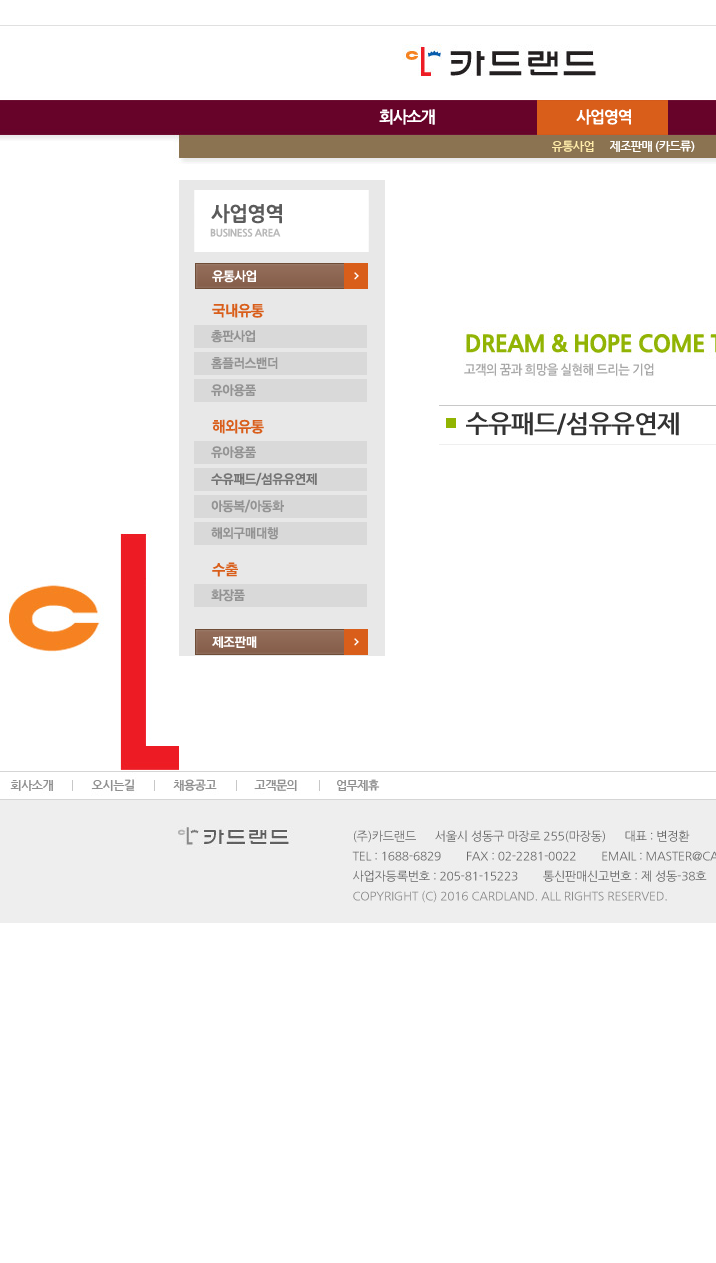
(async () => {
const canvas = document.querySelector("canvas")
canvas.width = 716
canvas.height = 1263
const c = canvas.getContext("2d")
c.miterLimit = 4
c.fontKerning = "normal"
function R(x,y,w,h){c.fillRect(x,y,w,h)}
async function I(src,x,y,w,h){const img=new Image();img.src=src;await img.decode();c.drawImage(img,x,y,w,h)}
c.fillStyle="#fff"
R(0,0,716,1263)
await I("1.png",0,25,716,116)
await I("2.png",402,44,195,32)
await I("3.png",173,132,543,32)
await I("4.png",340,109,131,25)
await I("5.png",537,100,131,35)
await I("6.png",552,140,42,12)
await I("7.png",610,140,85,12)
await I("8.png",8,530,171,240)
c.fillStyle="#e8e8e8"
R(179,252,206,404)
await I("9.png",179,166,206,86)
await I("10.png",195,263,173,26)
await I("11.png",212,303,52,15)
await I("12.png",194,325,173,23)
await I("13.png",194,352,173,23)
await I("14.png",194,379,173,23)
await I("15.png",212,419,52,15)
await I("14.png",194,441,173,23)
await I("16.png",194,468,173,23)
await I("17.png",194,495,173,23)
await I("18.png",194,522,173,23)
await I("19.png",212,562,26,15)
await I("20.png",194,584,173,23)
await I("21.png",195,629,173,26)
await I("22.png",463,327,253,56)
c.fillStyle="#c8c8c8"
R(439,405,277,1)
c.fillStyle="#efefef"
R(439,444,277,1)
await I("23.png",446,412,233,24)
c.fillStyle="#d5d5d5"
R(0,771,716,1)
await I("24.png",9,780,64,16)
await I("25.png",91,772,64,24)
await I("26.png",173,779,64,16)
await I("27.png",254,779,66,16)
await I("28.png",337,779,43,17)
c.fillStyle="#eee"
R(0,800,716,123)
c.fillStyle="#d5d5d5"
R(0,799,716,1)
await I("29.png",177,826,539,77)
})()
